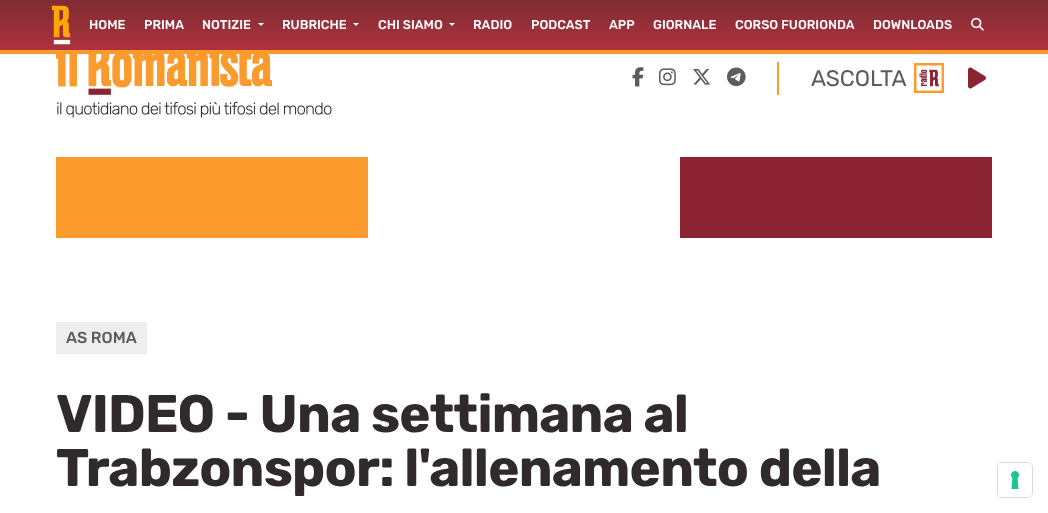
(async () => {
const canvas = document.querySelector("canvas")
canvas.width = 1048
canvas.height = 513
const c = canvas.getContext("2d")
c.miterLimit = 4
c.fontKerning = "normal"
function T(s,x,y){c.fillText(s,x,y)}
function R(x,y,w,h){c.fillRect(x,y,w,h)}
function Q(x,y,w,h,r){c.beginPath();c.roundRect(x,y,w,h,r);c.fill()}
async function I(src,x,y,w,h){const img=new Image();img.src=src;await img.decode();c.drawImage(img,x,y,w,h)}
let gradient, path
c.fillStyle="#fff"
R(0,0,1048,513)
c.fillStyle="#fa9a2c"
R(0,50,1048,4)
gradient = c.createLinearGradient(524,0,524,50)
gradient.addColorStop(0,"#7f2c34")
gradient.addColorStop(1,"#ae323c")
c.fillStyle = gradient
R(0,0,1048,50)
await I("1.png",51,5,20,40)
c.font="500 12.75px Rubik"
c.fillStyle="#fff"
T("HOME",89,29)
T("PRIMA",144,29)
T("NOTIZIE",202,29)
path = new Path2D("M258 23h6l-3 3z")
c.fill(path)
T("RUBRICHE",282,29)
path = new Path2D("M353 23h6l-3 3z")
c.fill(path)
T("CHI SIAMO",378,29)
path = new Path2D("M449 23h6l-3 3z")
c.fill(path)
T("RADIO",473,29)
T("PODCAST",531,29)
T("APP",609,29)
T("GIORNALE",653,29)
T("CORSO FUORIONDA",735,29)
T("DOWNLOADS",873,29)
await I("2.png",971,17,13,14)
await I("3.png",56,54,276,64)
await I("4.png",632,67,12,20)
await I("5.png",659,68,17,18)
await I("6.png",693,69,18,16)
await I("7.png",727,67,19,20)
c.fillStyle="#fb9a2d"
R(777,62,2,33)
c.font="22.5px Rubik"
c.fillStyle="#5c5c5c"
T("ASCOLTA",811,86)
await I("8.png",914,63,30,30)
await I("9.png",968,67,18,22)
c.fillStyle="#fb9a2d"
R(56,157,312,81)
c.fillStyle="#8b2332"
R(680,157,312,81)
c.fillStyle="#eee"
R(56,322,91,32)
c.font="500 16px Rubik"
c.fillStyle="#5c5c5c"
T("AS ROMA",66,343)
c.letterSpacing="-0.8px"
c.font="bold 52.75px Rubik"
c.fillStyle="#302a2c"
T("VIDEO - Una settimana al",56,432)
T("Trabzonspor: l'allenamento della",56,486)
c.beginPath()
c.roundRect(997.5,462.5,35,35,4.5)
c.strokeStyle="#d9d9d9"
c.stroke()
c.fillStyle="#fff"
Q(998,463,34,34,4)
await I("10.png",1011,471,8,18)
})()
